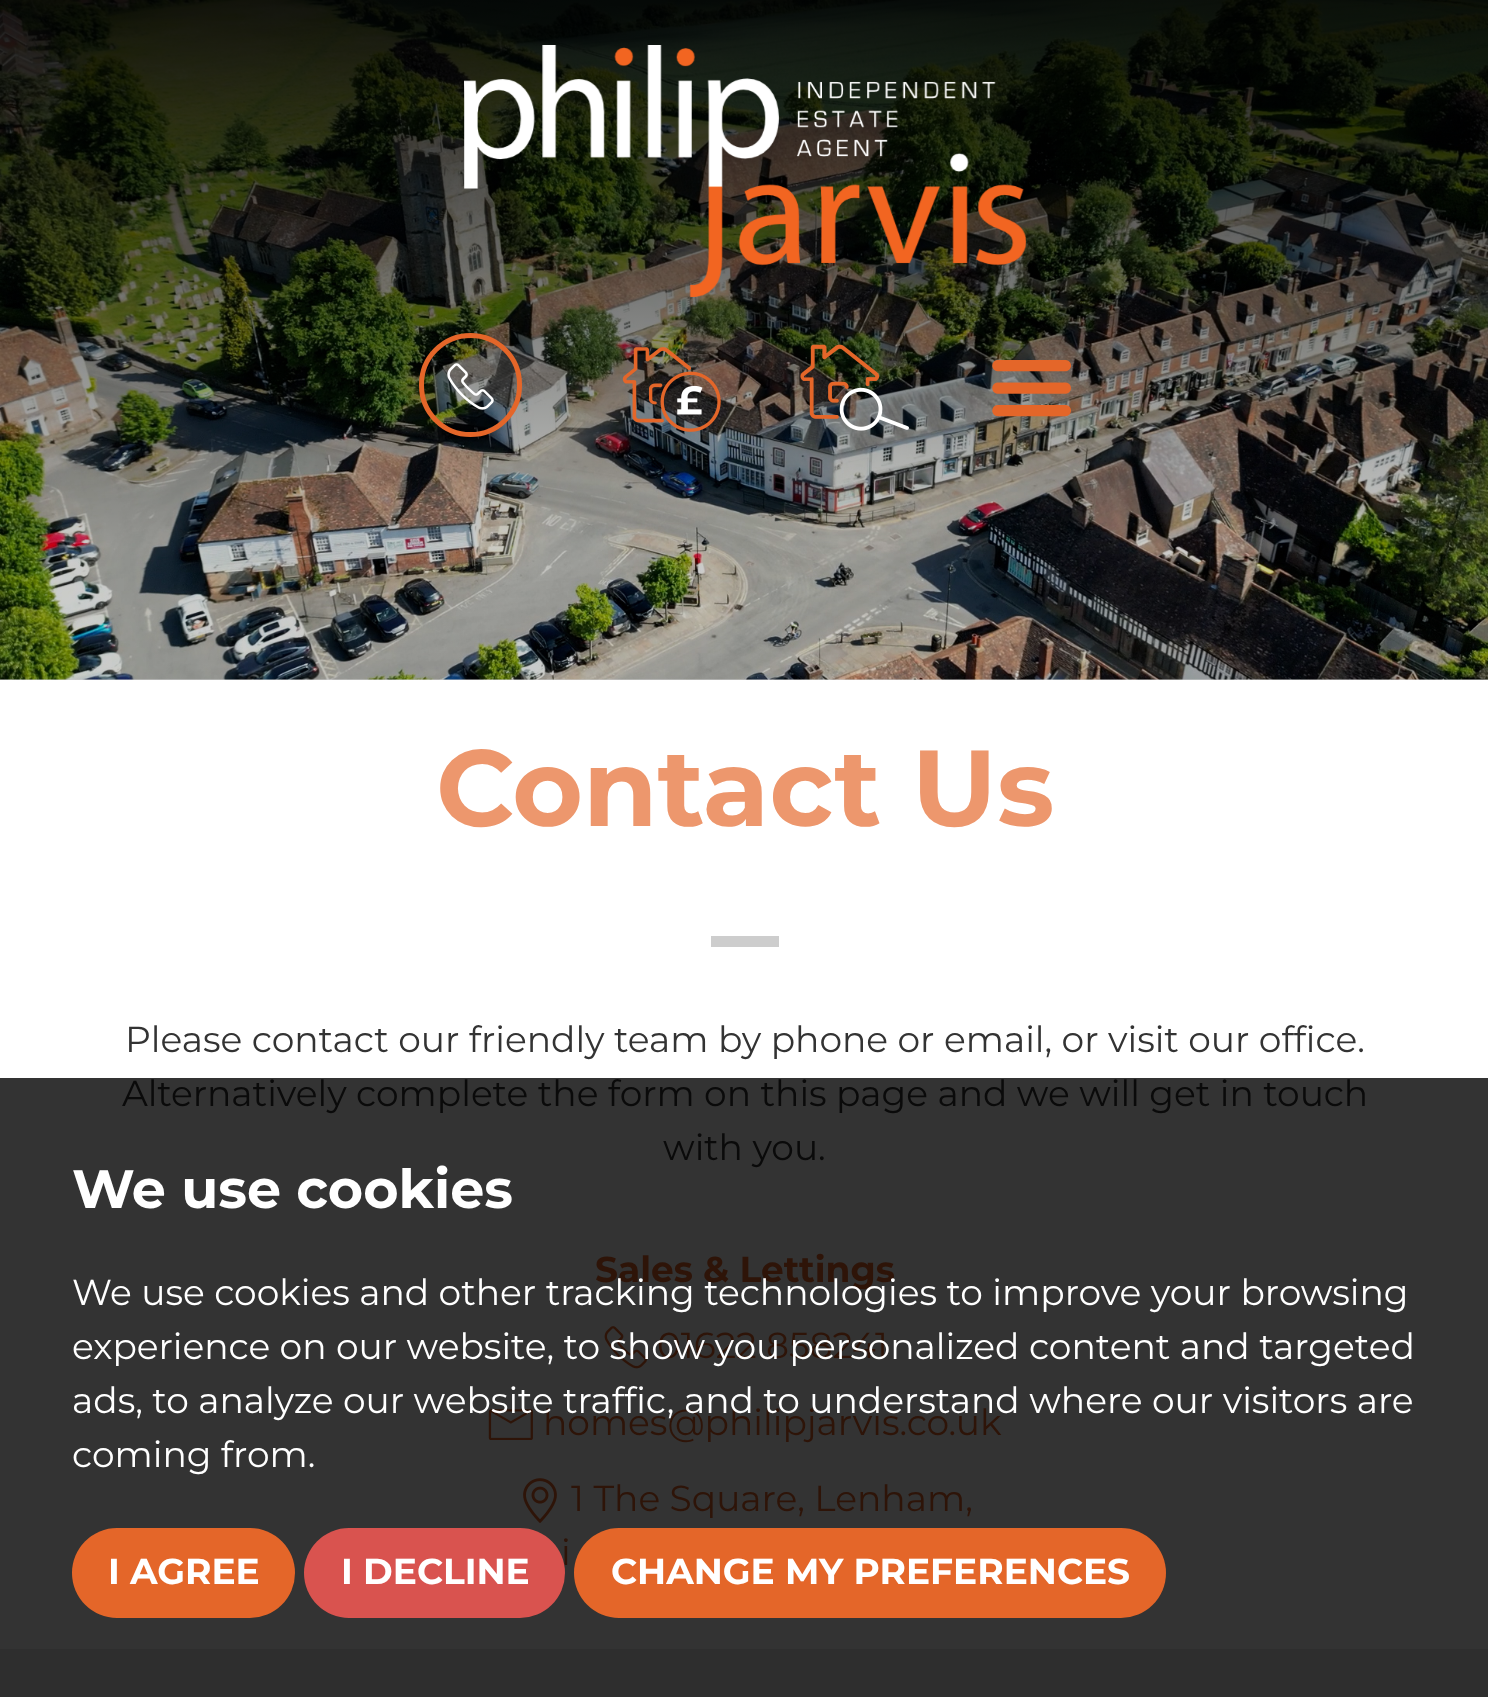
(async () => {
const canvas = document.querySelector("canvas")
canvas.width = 1488
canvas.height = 1697
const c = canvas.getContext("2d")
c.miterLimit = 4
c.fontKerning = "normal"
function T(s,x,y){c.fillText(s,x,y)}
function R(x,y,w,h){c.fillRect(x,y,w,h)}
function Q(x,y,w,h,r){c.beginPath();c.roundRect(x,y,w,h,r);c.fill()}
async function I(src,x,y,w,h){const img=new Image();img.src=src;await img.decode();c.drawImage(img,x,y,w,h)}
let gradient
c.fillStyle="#fff"
R(0,0,1488,1697)
c.fillStyle="#333"
R(0,1078,1488,571)
await I("1.png",0,0,1488,680)
gradient = c.createLinearGradient(745,680,745,0)
gradient.addColorStop(.2,"#00000033")
gradient.addColorStop(1,"#000000e6")
c.fillStyle = gradient
R(0,0,1488,680)
await I("2.png",464,45,562,252)
c.beginPath()
c.roundRect(421.5,335.5,98,99,49)
c.strokeStyle="#e46629"
c.lineWidth=5
c.stroke()
await I("3.png",447,363,47,47)
await I("4.png",622,347,99,85)
await I("5.png",800,344,109,87)
await I("6.png",992,360,79,57)
c.font="bold 108px Montserrat"
c.fillStyle="#ed976d"
T("Contact Us",436,826)
c.fillStyle="#cdcdcd"
R(711,936,68,11)
c.font="36px Montserrat"
c.fillStyle="#333"
T("Please contact our friendly team by phone or email, or visit our office.",125,1052)
c.fillStyle="#0a0a0a"
T("Alternatively complete the form on this page and we will get in touch",122,1106)
T("with you.",663,1160)
c.font="bold 36px Montserrat"
c.fillStyle="#2e1408"
T("Sales & Lettings",595,1282)
await I("7.png",604,1326,43,43)
c.font="36px Montserrat"
T("01622 858241",657,1358)
await I("8.png",488,1409,45,31)
T("homes@philipjarvis.co.uk",543,1435)
await I("9.png",523,1478,34,45)
T("1 The Square, Lenham,",571,1511)
T("i",561,1565)
c.font="bold 54px Montserrat"
c.fillStyle="#fff"
T("We use cookies",72,1208)
c.font="36px Montserrat"
T("We use cookies and other tracking technologies to improve your browsing",72,1305)
T("experience on our website, to show you personalized content and targeted",72,1359)
T("ads, to analyze our website traffic, and to understand where our visitors are",72,1413)
T("coming from.",72,1467)
c.fillStyle="#e46629"
Q(72,1528,223,90,45)
c.font="bold 36px Montserrat"
c.fillStyle="#fff"
T("I AGREE",108,1584)
c.fillStyle="#d9534f"
Q(304,1528,261,90,45)
c.fillStyle="#fff"
T("I DECLINE",341,1584)
c.fillStyle="#e46629"
Q(574,1528,592,90,45)
c.fillStyle="#fff"
T("CHANGE MY PREFERENCES",611,1584)
c.fillStyle="#2e2e2e"
R(0,1649,1488,48)
})()
